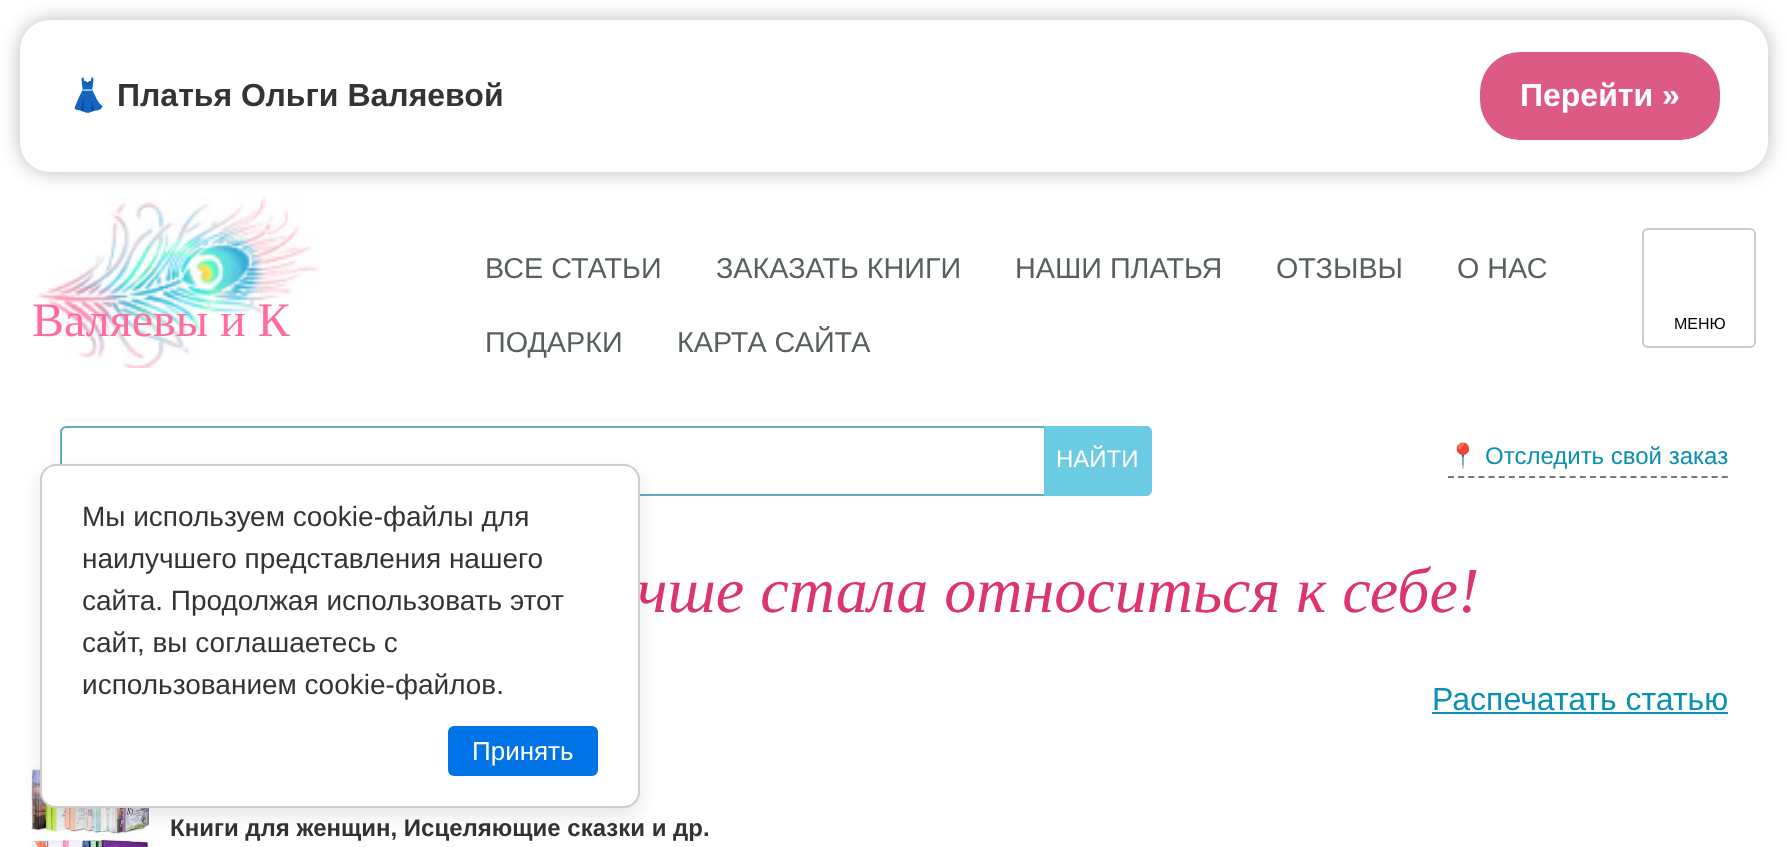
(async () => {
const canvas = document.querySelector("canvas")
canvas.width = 1788
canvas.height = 847
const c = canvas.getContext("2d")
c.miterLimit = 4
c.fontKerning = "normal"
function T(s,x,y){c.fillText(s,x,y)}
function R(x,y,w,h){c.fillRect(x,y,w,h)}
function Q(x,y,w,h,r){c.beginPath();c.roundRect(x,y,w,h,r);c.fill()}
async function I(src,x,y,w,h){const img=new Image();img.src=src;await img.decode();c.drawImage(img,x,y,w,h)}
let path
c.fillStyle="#fff"
R(0,0,1788,847)
await I("1.png",32,196,289,172)
c.fillStyle="#bbb"
c.filter="blur(10px)"
c.beginPath()
c.roundRect(20,20,1748,152,30)
c.fill()
c.filter="none"
c.fillStyle="#fff"
Q(20,20,1748,152,30)
c.font="bold 32px Noto Color Emoji"
c.fillStyle="#333"
T("👗",68,106)
c.font="bold 32px Liberation Sans"
T("Платья Ольги Валяевой",117,106)
c.fillStyle="#dd5a85"
Q(1480,52,240,88,40)
c.fillStyle="#fff"
T("Перейти »",1520,106)
c.font="48px Liberation Serif"
c.fillStyle="#ff6d9d"
T("Валяевы и К",32,336)
c.font="28.75px Liberation Sans"
c.fillStyle="#57605f"
T("ВСЕ СТАТЬИ",485,278)
T("ЗАКАЗАТЬ КНИГИ",716,278)
T("НАШИ ПЛАТЬЯ",1015,278)
T("ОТЗЫВЫ",1276,278)
T("О НАС",1457,278)
T("ПОДАРКИ",485,352)
T("КАРТА САЙТА",677,352)
c.beginPath()
c.roundRect(1643,229,112,118,5)
c.strokeStyle="#ccc"
c.lineWidth=2
c.stroke()
c.font="16px Liberation Sans"
c.fillStyle="#000"
T("МЕНЮ",1674,329)
c.fillStyle="#63adc0"
path = new Path2D("M66 426h978v70h-978c-3 0-6-3-6-6v-58c0-3 3-6 6-6zm0 2h978v66h-978c-2 0-4-2-4-4v-58c0-2 2-4 4-4z")
c.fill(path,"evenodd")
c.fillStyle="#6bcbe3"
c.beginPath()
c.roundRect(1044,426,108,70,[0,6,6,0])
c.fill()
path = new Path2D("M1044 426h102c3 0 6 3 6 6v58c0 3-3 6-6 6h-102zm0 2h102c2 0 4 2 4 4v58c0 2-2 4-4 4h-102z")
c.fill(path,"evenodd")
c.font="24px Liberation Sans"
c.fillStyle="#fff"
T("НАЙТИ",1056,467)
path = new Path2D("M1448 477h280")
c.strokeStyle="#777"
c.setLineDash([6,4.14])
c.stroke(path)
c.font="24px Noto Color Emoji"
c.fillStyle="#0990b3"
T("📍",1448,464)
c.font="24px Liberation Sans"
T("Отследить свой заказ",1485,464)
c.font="italic 64px Liberation Serif"
c.fillStyle="#dd3469"
T("чше стала относиться к себе!",637,612)
c.font="32px Liberation Sans"
c.fillStyle="#0990b3"
T("Распечатать статью",1432,710)
R(1432,712,296,2)
await I("2.png",30,764,119,83)
c.font="bold 24px Liberation Sans"
c.fillStyle="#333"
T("Книги для женщин, Исцеляющие сказки и др.",170,836)
c.fillStyle="#0000001a"
c.filter="blur(10px)"
c.beginPath()
c.roundRect(40,472,600,344,16)
c.fill()
c.filter="none"
c.fillStyle="#fff"
c.beginPath()
c.roundRect(41,465,598,342,15)
c.fill()
c.strokeStyle="#ccc"
c.setLineDash([])
c.stroke()
c.font="28px Liberation Sans"
c.fillStyle="#333"
T("Мы используем cookie-файлы для",82,526)
T("наилучшего представления нашего",82,568)
T("сайта. Продолжая использовать этот",82,610)
T("сайт, вы соглашаетесь с",82,652)
T("использованием cookie-файлов.",82,694)
c.fillStyle="#0073e6"
Q(448,726,150,50,6)
c.font="26px Liberation Sans"
c.fillStyle="#fff"
T("Принять",472,760)
})()
